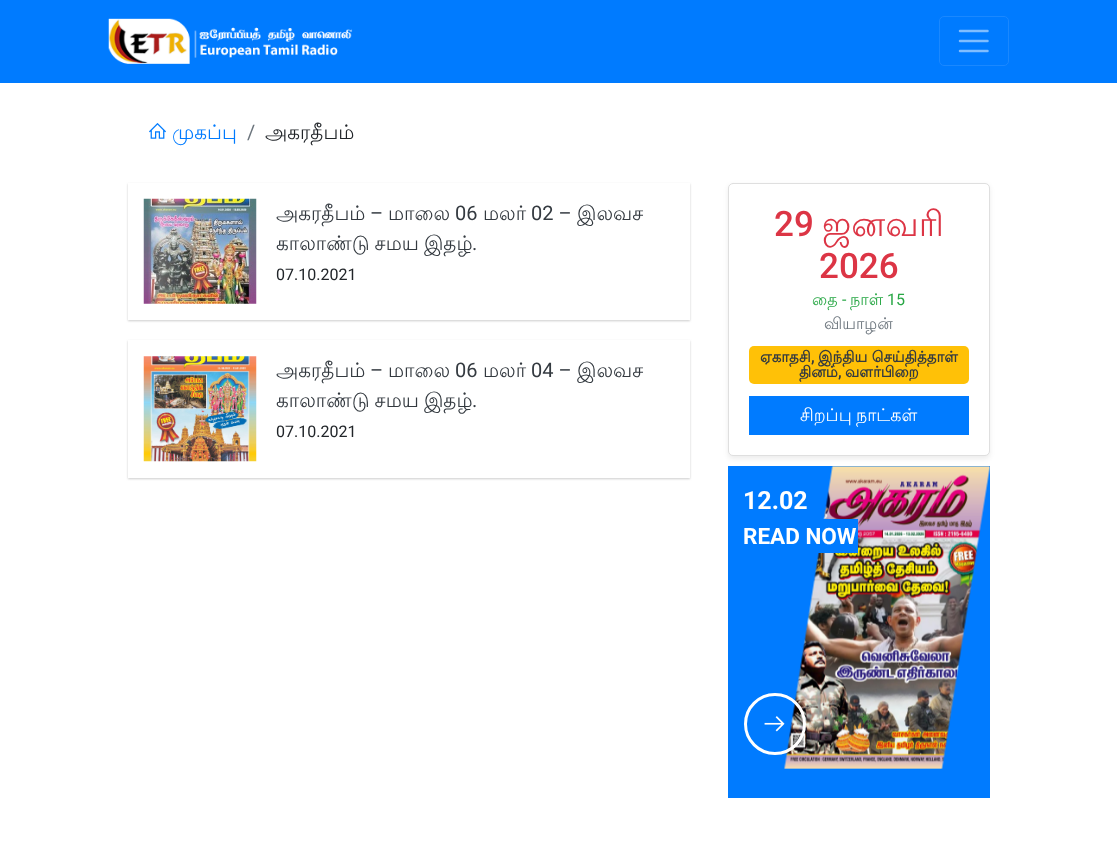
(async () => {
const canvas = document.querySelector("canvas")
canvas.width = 1117
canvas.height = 864
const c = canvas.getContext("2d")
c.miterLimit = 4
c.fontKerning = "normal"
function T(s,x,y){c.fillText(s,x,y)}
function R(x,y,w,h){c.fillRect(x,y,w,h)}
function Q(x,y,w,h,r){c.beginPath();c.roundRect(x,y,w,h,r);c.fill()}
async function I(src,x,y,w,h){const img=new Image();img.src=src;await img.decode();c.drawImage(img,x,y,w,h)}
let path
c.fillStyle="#fff"
R(0,0,1117,864)
c.fillStyle="#007bff"
R(0,0,1117,83)
await I("1.png",108,18,245,46)
c.beginPath()
c.roundRect(939.5,16.5,69,49,4.5)
c.strokeStyle="#1a88ff"
c.stroke()
path = new Path2D("M960 31h27.5m-27.5 10h27.5m-27.5 10h27.5")
c.strokeStyle="#80bdff"
c.lineWidth=2.5
c.lineCap="round"
c.stroke(path)
await I("2.png",149,123,17,16)
c.font="20px Lohit Tamil"
T("முகப்பு",172,139)
c.font="20px Roboto"
c.fillStyle="#6c757d"
T("/",247,139)
c.font="20px Lohit Tamil"
c.fillStyle="#212529"
T("அகரதீபம்",265,139)
c.save()
path = new Path2D("M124 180h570v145h-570zm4 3h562v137h-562z")
c.clip(path,"evenodd")
c.fillStyle="#ccc"
c.filter="blur(1px)"
c.beginPath()
c.rect(128,184,562,137)
c.fill()
c.filter="none"
c.restore()
await I("3.png",143,198,114,106)
c.fillStyle="#343a40"
T("அகரதீபம்",276,220)
c.font="20px Roboto"
T("–",370,220)
c.font="20px Lohit Tamil"
T("மாலை",388,220)
c.font="20px Roboto"
T("06",455,220)
c.font="20px Lohit Tamil"
T("மலர்",483,220)
c.font="20px Roboto"
T("02 –",531,220)
c.font="20px Lohit Tamil"
T("இலவச",577,220)
c.wordSpacing="-1px"
T("காலாண்டு சமய இதழ்",276,250)
c.wordSpacing="0px"
c.font="20px Roboto"
T(".",472,250)
c.font="16px Roboto"
c.fillStyle="#212529"
T("07.10.2021",276,280)
c.fillStyle="#ccc"
c.filter="blur(1px)"
c.beginPath()
c.rect(128,341,562,138)
c.fill()
c.filter="none"
c.fillStyle="#fff"
R(128,340,562,138)
await I("4.png",143,356,114,106)
c.font="20px Lohit Tamil"
c.fillStyle="#343a40"
T("அகரதீபம்",276,377)
c.font="20px Roboto"
T("–",370,377)
c.font="20px Lohit Tamil"
T("மாலை",388,377)
c.font="20px Roboto"
T("06",455,377)
c.font="20px Lohit Tamil"
T("மலர்",483,377)
c.font="20px Roboto"
T("04 –",531,377)
c.font="20px Lohit Tamil"
T("இலவச",577,377)
c.wordSpacing="-1px"
T("காலாண்டு சமய இதழ்",276,407)
c.wordSpacing="0px"
c.font="20px Roboto"
T(".",472,407)
c.font="16px Roboto"
c.fillStyle="#212529"
T("07.10.2021",276,437)
c.fillStyle="#00000012"
c.filter="blur(2.5px)"
c.beginPath()
c.roundRect(728,185,262,274,5)
c.fill()
c.filter="none"
c.fillStyle="#fff"
c.beginPath()
c.roundRect(728.5,183.5,261,272,4.5)
c.fill()
c.strokeStyle="#dfdfdf"
c.lineWidth=1
c.stroke()
c.font="500 35px Roboto"
c.fillStyle="#dc3545"
T("29",774,236)
c.font="35px Lohit Tamil"
T("ஜனவரி",822,236)
c.font="500 35px Roboto"
T("2026",819,278)
c.font="16px Lohit Tamil"
c.fillStyle="#28a745"
T("தை",812,305)
c.font="16px Roboto"
T("-",842,305)
c.font="16px Lohit Tamil"
T("நாள்",850,305)
c.font="16px Roboto"
T("15",887,305)
c.font="16px Lohit Tamil"
c.fillStyle="#6c757d"
T("வியாழன்",824,329)
c.fillStyle="#ffc107"
Q(749,346,220,38,5)
c.font="bold 15px Lohit Tamil"
c.fillStyle="#343a40"
T("ஏகாதசி",760,362)
c.font="bold 15px Roboto"
T(",",811,362)
c.font="bold 15px Lohit Tamil"
T("இந்திய செய்தித்தாள்",818,362)
T("தினம்",799,377)
c.font="bold 15px Roboto"
T(",",838,377)
c.font="bold 15px Lohit Tamil"
T("வளர்பிறை",845,377)
c.fillStyle="#007bff"
R(749,396,220,39)
c.wordSpacing="-1px"
c.font="17.5px Lohit Tamil"
c.fillStyle="#fff"
T("சிறப்பு நாட்கள்",800,421)
c.fillStyle="#007bff"
R(728,466,262,332)
await I("5.png",784,466,206,303)
c.wordSpacing="0px"
c.font="bold 25px Roboto"
c.fillStyle="#fff"
T("12.02",743,509)
c.fillStyle="#007bff"
R(818,519,40,34)
c.font="bold 22.5px Roboto"
c.fillStyle="#fff"
T("READ NOW",743,544)
c.beginPath()
c.arc(775,724,29.5,0,7)
c.strokeStyle="#fff"
c.lineWidth=3
c.stroke()
await I("6.png",764,716,21,16)
})()
